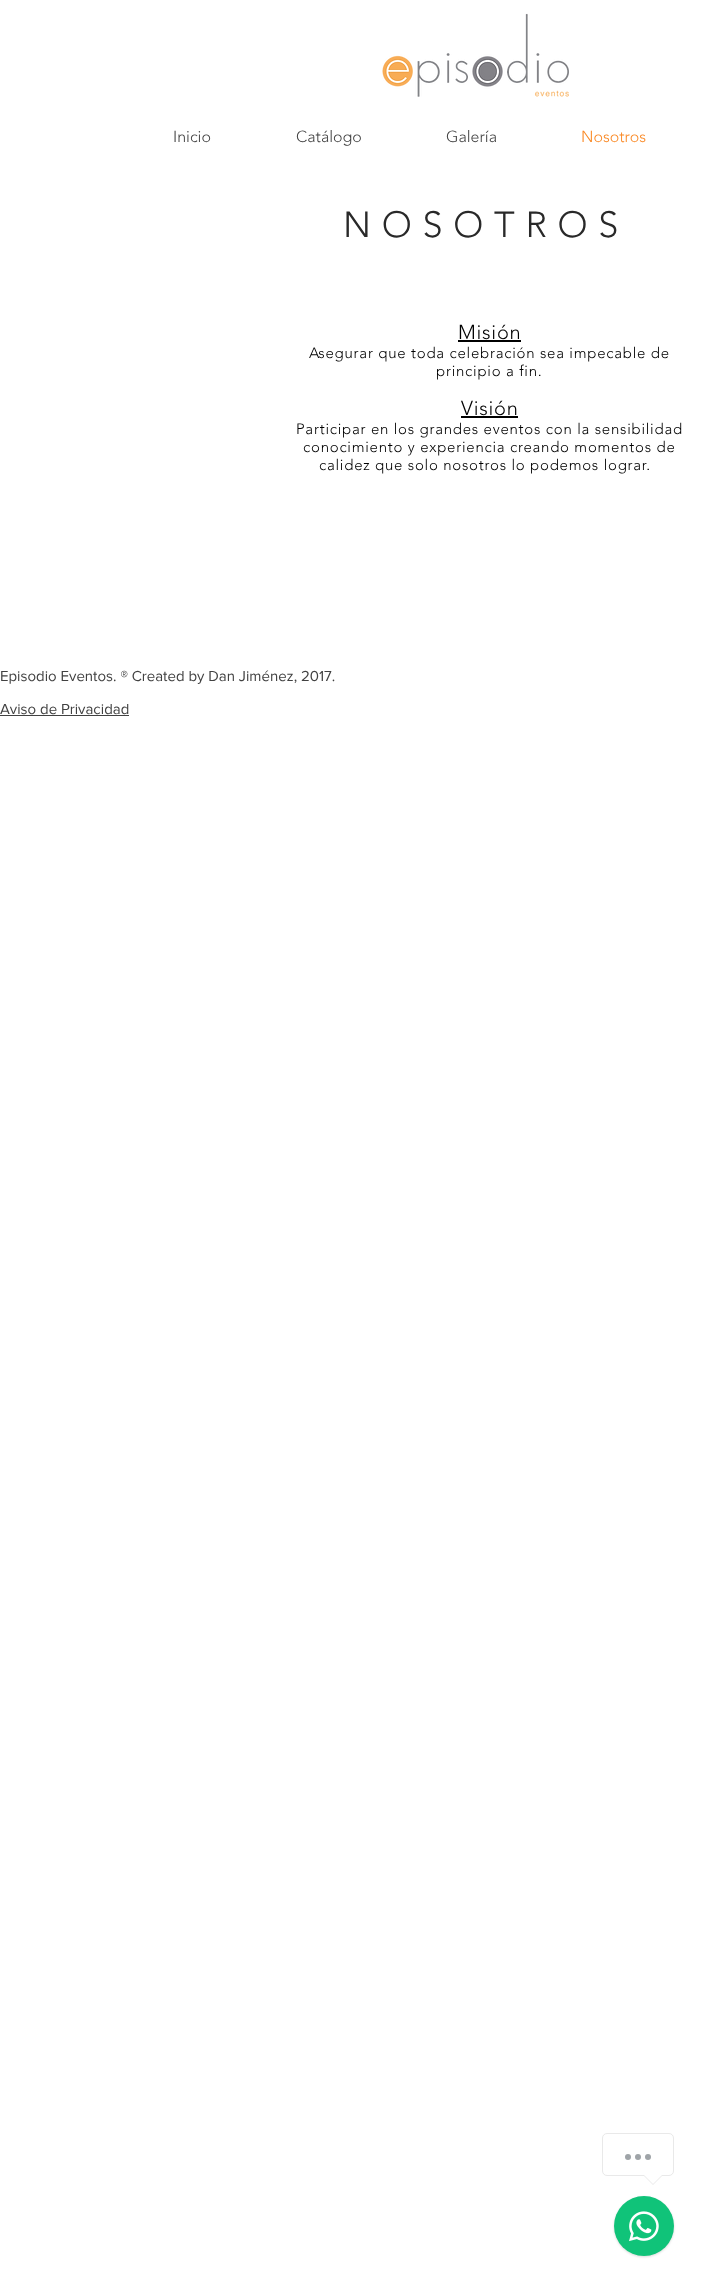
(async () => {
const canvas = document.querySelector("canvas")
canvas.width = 704
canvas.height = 2286
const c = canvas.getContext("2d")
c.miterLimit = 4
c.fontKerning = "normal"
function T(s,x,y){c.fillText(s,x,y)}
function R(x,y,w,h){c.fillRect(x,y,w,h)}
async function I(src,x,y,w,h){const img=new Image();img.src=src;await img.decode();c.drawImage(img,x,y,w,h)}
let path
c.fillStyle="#fff"
R(0,0,704,2286)
await I("1.png",382,13,187,84)
c.font="300 16px 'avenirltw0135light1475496'"
c.fillStyle="#414141"
T("Inicio",173,142)
T("Catálogo",296,142)
T("Galería",446,142)
c.fillStyle="#fa8925"
T("Nosotros",581,142)
c.letterSpacing="10.75px"
c.font="300 36px 'avenirltw0135light1475496'"
c.fillStyle="#292929"
T("NOSOTROS",343,237)
c.letterSpacing="0.75px"
c.font="300 20px 'avenirltw0135light1475496'"
c.fillStyle="#000"
T("Misión",458,339)
R(458,340,63,2)
c.font="300 15px 'avenirltw0135light1475496'"
T("Asegurar que toda celebración sea impecable de",309,358)
T("principio a fin.",436,376)
c.font="300 20px 'avenirltw0135light1475496'"
T("Visión",461,415)
R(461,416,57,2)
c.font="300 15px 'avenirltw0135light1475496'"
T("Participar en los grandes eventos con la sensibilidad",296,434)
T("conocimiento y experiencia creando momentos de",303,452)
T("calidez que solo nosotros lo podemos lograr.",319,470)
c.letterSpacing="0px"
c.font="15px 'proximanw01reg'"
c.fillStyle="#414141"
T("Episodio Eventos. ® Created by Dan Jiménez, 2017.",0,681)
T("Aviso de Privacidad",0,714)
R(0,715,129,1)
c.beginPath()
c.roundRect(602.5,2133.5,71,42,4.5)
c.strokeStyle="#e9e9e9"
c.stroke()
c.fillStyle="#9fa4a8"
c.beginPath()
c.arc(628,2157,3,0,7)
c.fill()
c.beginPath()
c.arc(638,2157,3,0,7)
c.fill()
c.beginPath()
c.arc(648,2157,3,0,7)
c.fill()
c.fillStyle="#e9e9e9"
path = new Path2D("M643 2175h20l-10 10z")
c.fill(path)
c.fillStyle="#fff"
path = new Path2D("M644 2175h18l-9 9z")
c.fill(path)
c.fillStyle="#00000026"
c.filter="blur(1px)"
c.beginPath()
c.roundRect(614,2197,60,60,30)
c.fill()
c.filter="none"
c.fillStyle="#10c379"
c.beginPath()
c.arc(644,2226,30,0,7)
c.fill()
await I("2.png",629,2211,30,31)
})()
